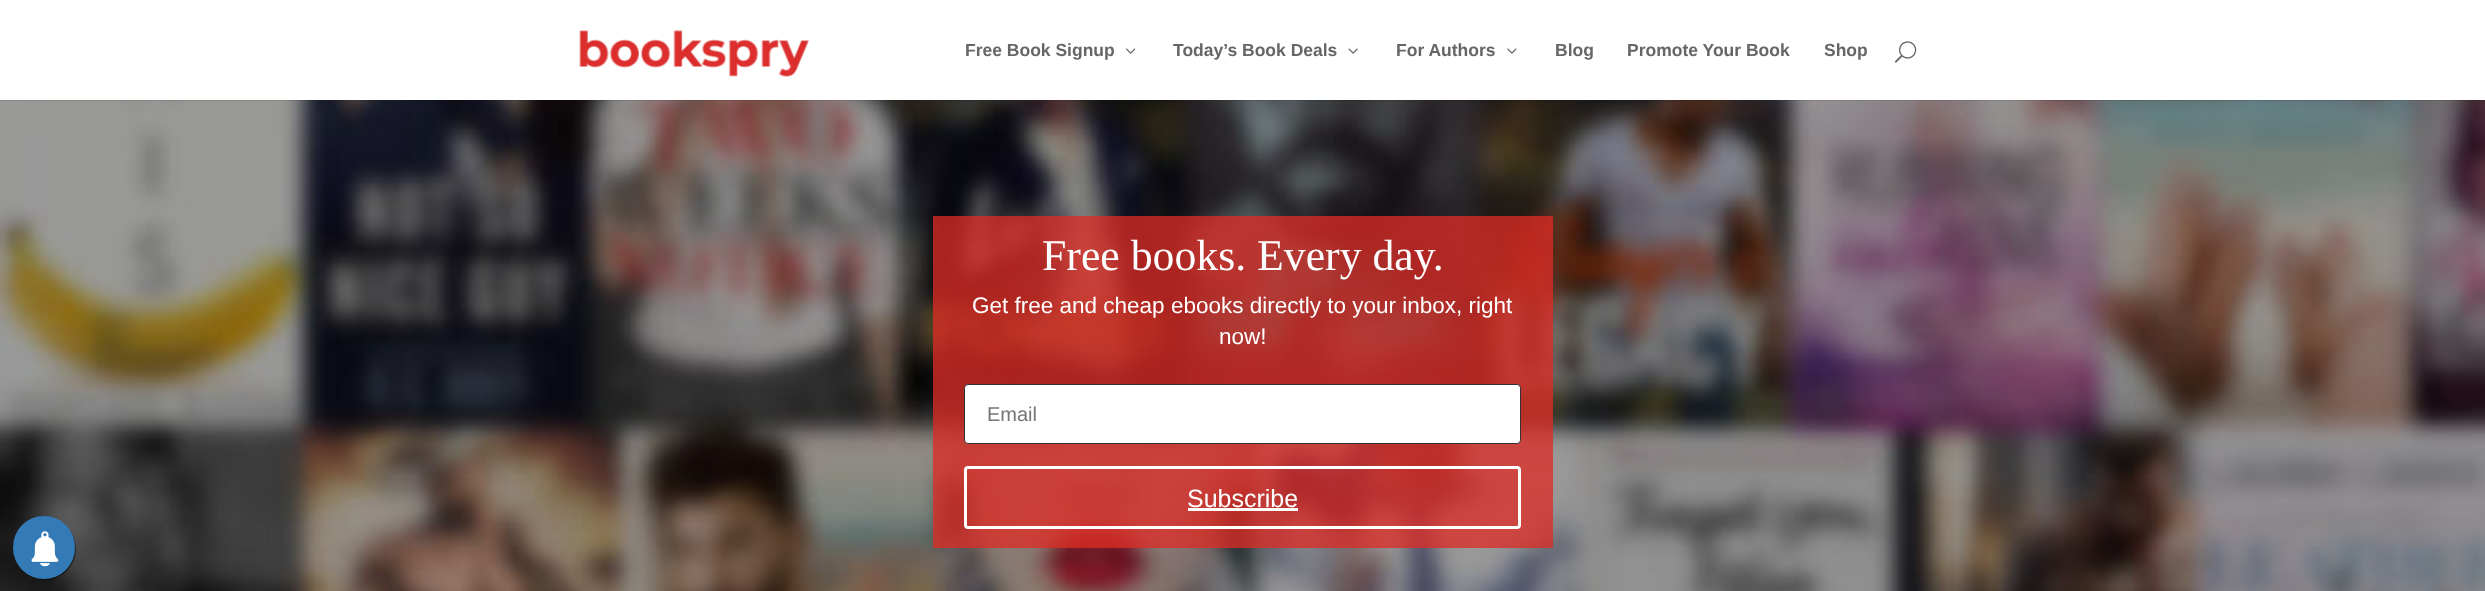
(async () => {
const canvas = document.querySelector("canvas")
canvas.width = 2485
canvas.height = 591
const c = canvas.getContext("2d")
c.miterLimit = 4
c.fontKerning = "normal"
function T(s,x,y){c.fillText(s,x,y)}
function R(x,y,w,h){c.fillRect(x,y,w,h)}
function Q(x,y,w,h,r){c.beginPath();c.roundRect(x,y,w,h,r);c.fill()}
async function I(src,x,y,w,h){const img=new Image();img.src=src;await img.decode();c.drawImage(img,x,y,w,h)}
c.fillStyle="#fff"
R(0,0,2485,591)
await I("6.png",0,100,2485,491)
c.fillStyle="#0000001a"
R(0,100,2485,1)
await I("1.png",579,30,230,47)
c.font="bold 17.5px Liberation Sans"
c.fillStyle="#666"
T("Free Book Signup",965,56)
await I("2.png",1126,48,10,6)
T("Today’s Book Deals",1173,56)
await I("3.png",1348,48,10,6)
T("For Authors",1396,56)
await I("4.png",1507,48,10,6)
T("Blog",1555,56)
T("Promote Your Book",1627,56)
T("Shop",1824,56)
await I("5.png",1895,41,22,22)
c.fillStyle="#de2c25c2"
R(933,216,620,332)
c.font="43.75px Liberation Serif"
c.fillStyle="#fff"
T("Free books. Every day.",1042,270)
c.font="22.5px Liberation Sans"
T("Get free and cheap ebooks directly to your inbox, right",972,313)
T("now!",1219,344)
c.beginPath()
c.roundRect(964.5,384.5,556,59,3.5)
c.fill()
c.strokeStyle="#333"
c.stroke()
c.font="20px Liberation Sans"
c.fillStyle="#757575"
T("Email",987,421)
c.beginPath()
c.roundRect(965.5,467.5,554,60,2.5)
c.strokeStyle="#fff"
c.lineWidth=3
c.stroke()
c.font="25px Liberation Sans"
c.fillStyle="#fff"
T("Subscribe",1187,507)
R(1188,508,110,3)
c.fillStyle="#00000080"
c.filter="blur(0.5px)"
c.beginPath()
c.roundRect(14,518,62,62,31)
c.fill()
c.filter="none"
c.fillStyle="#337ab7"
Q(13,516,62,63,31)
await I("7.png",31,531,28,36)
})()
